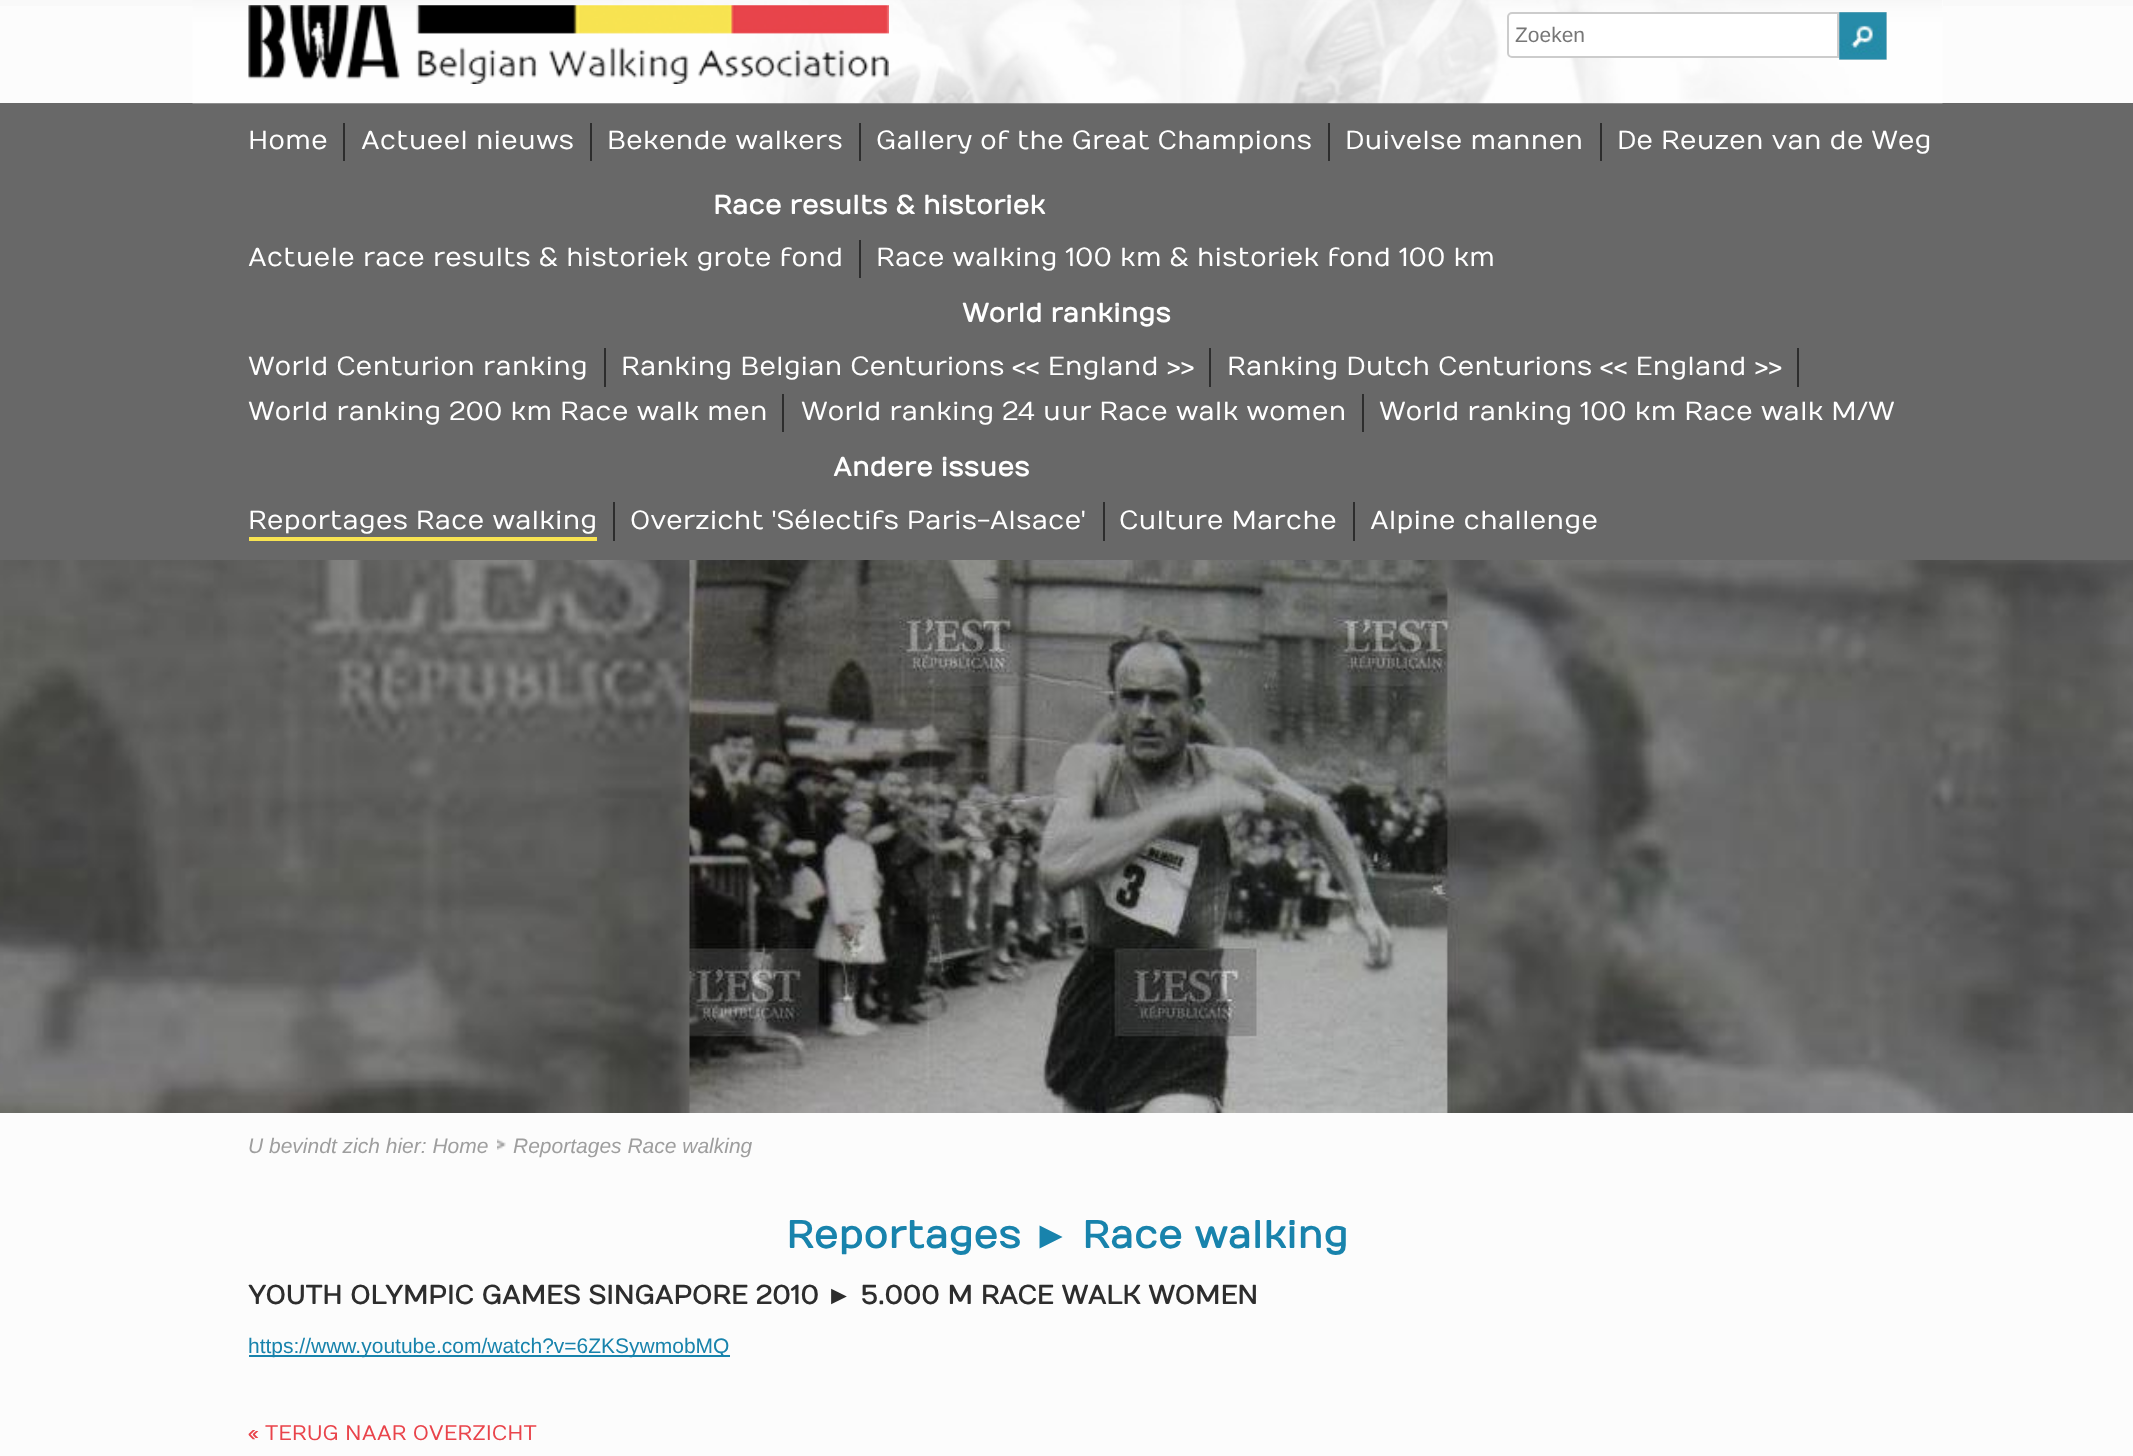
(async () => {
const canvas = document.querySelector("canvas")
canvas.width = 2133
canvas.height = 1456
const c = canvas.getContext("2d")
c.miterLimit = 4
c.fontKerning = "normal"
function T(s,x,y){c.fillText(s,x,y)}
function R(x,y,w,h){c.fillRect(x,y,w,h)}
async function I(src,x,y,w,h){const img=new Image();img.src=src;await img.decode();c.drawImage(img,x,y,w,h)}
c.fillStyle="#fcfcfc"
R(0,0,2133,1456)
c.fillStyle="#f9f9f9"
R(0,0,2133,6)
c.fillStyle="#fefefe"
R(1942,0,1,6)
c.fillStyle="#686868"
R(0,103,2133,457)
await I("1.png",192,0,1751,104)
await I("2.png",248,5,641,79)
c.fillStyle="#fff"
c.beginPath()
c.roundRect(1508,13,330,44,[4,0,0,4])
c.fill()
c.strokeStyle="#ccc"
c.lineWidth=2
c.stroke()
c.font="21px Liberation Sans"
c.fillStyle="#777"
T("Zoeken",1515,42)
c.fillStyle="#ddd"
R(1839,12,48,48)
await I("3.png",1839,12,48,48)
c.fillStyle="#2d2d2d"
R(343,123,2,38)
c.font="26.25px Numans"
c.fillStyle="#fff"
T("Home",248,149)
c.fillStyle="#2d2d2d"
R(590,123,2,38)
c.fillStyle="#fff"
T("Actueel nieuws",361,149)
c.fillStyle="#2d2d2d"
R(859,123,2,38)
c.fillStyle="#fff"
T("Bekende walkers",607,149)
c.fillStyle="#2d2d2d"
R(1328,123,2,38)
c.fillStyle="#fff"
T("Gallery of the Great Champions",876,149)
c.fillStyle="#2d2d2d"
R(1600,123,2,38)
c.fillStyle="#fff"
T("Duivelse mannen",1345,149)
T("De Reuzen van de Weg",1617,149)
c.font="bold 26.25px Numans"
T("Race results & historiek",713,214)
c.fillStyle="#2d2d2d"
R(859,240,2,38)
c.font="26.25px Numans"
c.fillStyle="#fff"
T("Actuele race results & historiek grote fond",248,266)
T("Race walking 100 km & historiek fond 100 km",876,266)
c.font="bold 26.25px Numans"
T("World rankings",962,322)
c.fillStyle="#2d2d2d"
R(604,348,2,39)
c.font="26.25px Numans"
c.fillStyle="#fff"
T("World Centurion ranking",248,375)
c.fillStyle="#2d2d2d"
R(1209,348,2,39)
c.fillStyle="#fff"
T("Ranking Belgian Centurions << England >>",621,375)
c.fillStyle="#2d2d2d"
R(1797,348,2,39)
c.fillStyle="#fff"
T("Ranking Dutch Centurions << England >>",1227,375)
c.fillStyle="#2d2d2d"
R(782,394,2,38)
c.fillStyle="#fff"
T("World ranking 200 km Race walk men",248,420)
c.fillStyle="#2d2d2d"
R(1362,394,2,38)
c.fillStyle="#fff"
T("World ranking 24 uur Race walk women",801,420)
T("World ranking 100 km Race walk M/W",1379,420)
c.font="bold 26.25px Numans"
T("Andere issues",833,476)
c.fillStyle="#2d2d2d"
R(613,502,2,39)
c.fillStyle="#f8e351"
R(249,537,348,4)
c.font="26.25px Numans"
c.fillStyle="#fff"
T("Reportages Race walking",248,529)
c.fillStyle="#2d2d2d"
R(1103,502,2,39)
c.fillStyle="#fff"
T("Overzicht 'Sélectifs Paris-Alsace'",630,529)
c.fillStyle="#2d2d2d"
R(1353,502,2,39)
c.fillStyle="#fff"
T("Culture Marche",1119,529)
T("Alpine challenge",1370,529)
await I("4.png",0,560,2133,553)
c.font="italic 21px Liberation Sans"
c.fillStyle="#9e9e9e"
T("U bevindt zich hier: Home",248,1153)
await I("5.png",497,1139,9,11)
T("Reportages Race walking",513,1153)
c.font="bold 38.5px Numans"
c.fillStyle="#1883ac"
T("Reportages",786,1248)
c.font="bold 38.5px Liberation Sans"
T("►",1032,1248)
c.font="bold 38.5px Numans"
T("Race walking",1082,1248)
c.font="bold 26.25px Numans"
c.fillStyle="#2d2d2d"
T("YOUTH OLYMPIC GAMES SINGAPORE 2010",248,1304)
c.font="bold 26.25px Liberation Sans"
T("►",826,1304)
c.font="bold 26.25px Numans"
T("5.000 M RACE WALK WOMEN",860,1304)
c.fillStyle="#1883ac"
R(249,1355,481,2)
c.font="21px Liberation Sans"
T("https://www.youtube.com/watch?v=6ZKSywmobMQ",248,1353)
c.font="21px Numans"
c.fillStyle="#e9444b"
T("« TERUG NAAR OVERZICHT",248,1440)
})()
